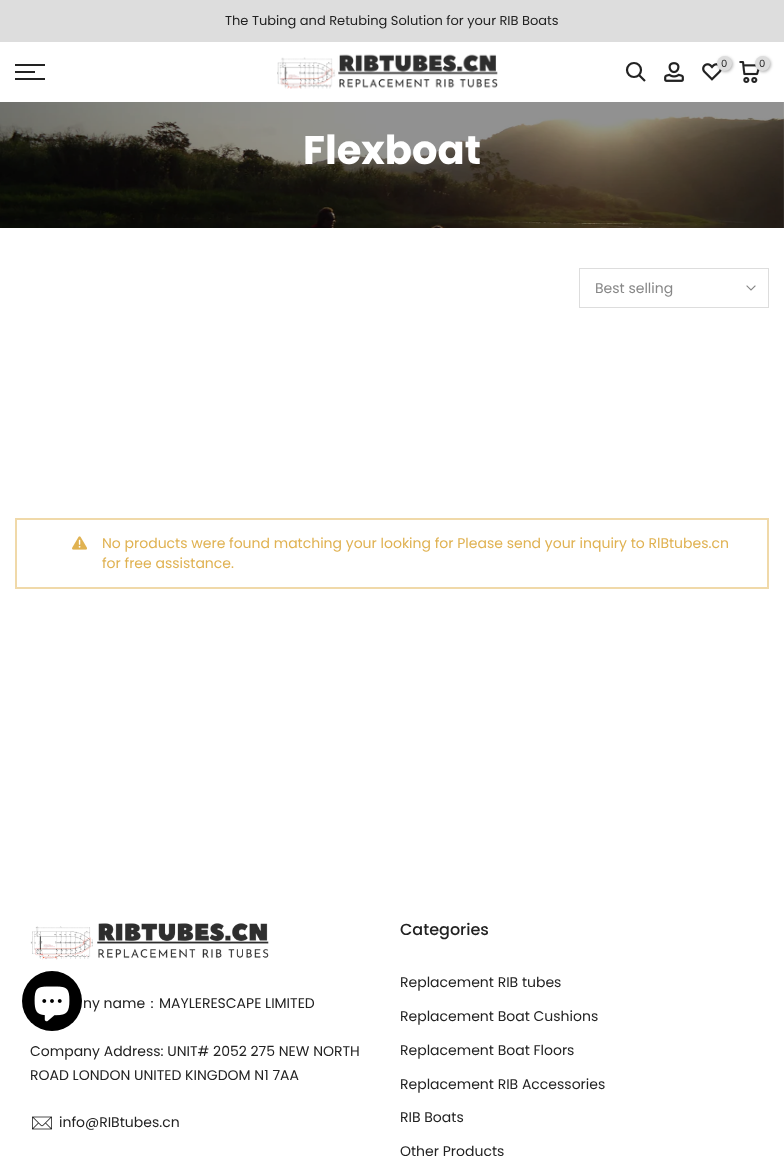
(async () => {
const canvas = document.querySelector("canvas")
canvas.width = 784
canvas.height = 1156
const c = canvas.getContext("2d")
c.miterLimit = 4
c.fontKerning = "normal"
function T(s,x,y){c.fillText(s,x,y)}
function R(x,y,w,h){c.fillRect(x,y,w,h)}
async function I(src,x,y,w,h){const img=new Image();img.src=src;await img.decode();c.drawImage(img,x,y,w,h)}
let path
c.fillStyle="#fff"
R(0,0,784,1156)
c.fillStyle="#ddd"
R(0,0,784,42)
c.font="13px Poppins"
c.fillStyle="#222"
T("The Tubing and Retubing Solution for your RIB Boats",225,25)
await I("1.png",277,54,221,35)
c.beginPath()
c.arc(634,70,7,0,7)
c.strokeStyle="#222"
c.lineWidth=2.2
c.stroke()
path = new Path2D("M639 75l6 6")
c.stroke(path)
await I("2.png",664,62,20,20)
await I("3.png",702,63,20,18)
c.fillStyle="#0000004d"
c.filter="blur(1.5px)"
c.beginPath()
c.roundRect(718,57,15,15,7.5)
c.fill()
c.filter="none"
c.fillStyle="#ddd"
c.beginPath()
c.arc(724.5,63.5,7.5,0,7)
c.fill()
c.font="10px Poppins"
c.fillStyle="#222"
T("0",721,67)
await I("4.png",739,61,21,22)
c.fillStyle="#0000004d"
c.filter="blur(1.5px)"
c.beginPath()
c.roundRect(756,57,15,15,7.5)
c.fill()
c.filter="none"
c.fillStyle="#ddd"
c.beginPath()
c.arc(762.5,63.5,7.5,0,7)
c.fill()
c.fillStyle="#222"
T("0",759,67)
R(15,64,30,2)
R(15,71,20,2)
R(15,78,30,2)
await I("5.png",0,102,784,126)
c.font="bold 40px Poppins"
c.fillStyle="#fff"
T("Flexboat",303,164)
c.strokeStyle="#ddd"
c.lineWidth=1
c.strokeRect(579.5,268.5,189,39)
c.font="14px Poppins"
c.fillStyle="#878787"
T("Best selling",595,293)
path = new Path2D("M755 286l-4 4l-4-4")
c.strokeStyle="#878787"
c.lineWidth=1.1
c.lineCap="square"
c.stroke(path)
c.strokeStyle="#f0d9a9"
c.lineWidth=2
c.strokeRect(16,519,752,69)
await I("6.png",72,536,15,14)
c.fillStyle="#e0b252"
T("No products were found matching your looking for Please send your inquiry to RlBtubes.cn",102,548)
T("for free assistance.",102,568)
await I("7.png",30,923,239,37)
c.fillStyle="#222"
T("ny name",83,1008)
c.font="500 14px WenQuanYi Zen Hei"
T("：",145,1008)
c.font="14px Poppins"
T("MAYLERESCAPE LIMITED",159,1008)
T("Company Address: UNIT# 2052 275 NEW NORTH",30,1056)
T("ROAD LONDON UNITED KINGDOM N1 7AA",30,1080)
await I("8.png",32,1116,20,14)
T("info@RIBtubes.cn",59,1127)
c.font="500 16px Poppins"
T("Categories",400,935)
c.font="14px Poppins"
T("Replacement RIB tubes",400,987)
T("Replacement Boat Cushions",400,1021)
T("Replacement Boat Floors",400,1055)
T("Replacement RIB Accessories",400,1089)
T("RIB Boats",400,1122)
T("Other Products",400,1156)
c.fillStyle="#000"
c.beginPath()
c.arc(52,1001,30,0,7)
c.fill()
await I("9.png",34,986,36,36)
})()
